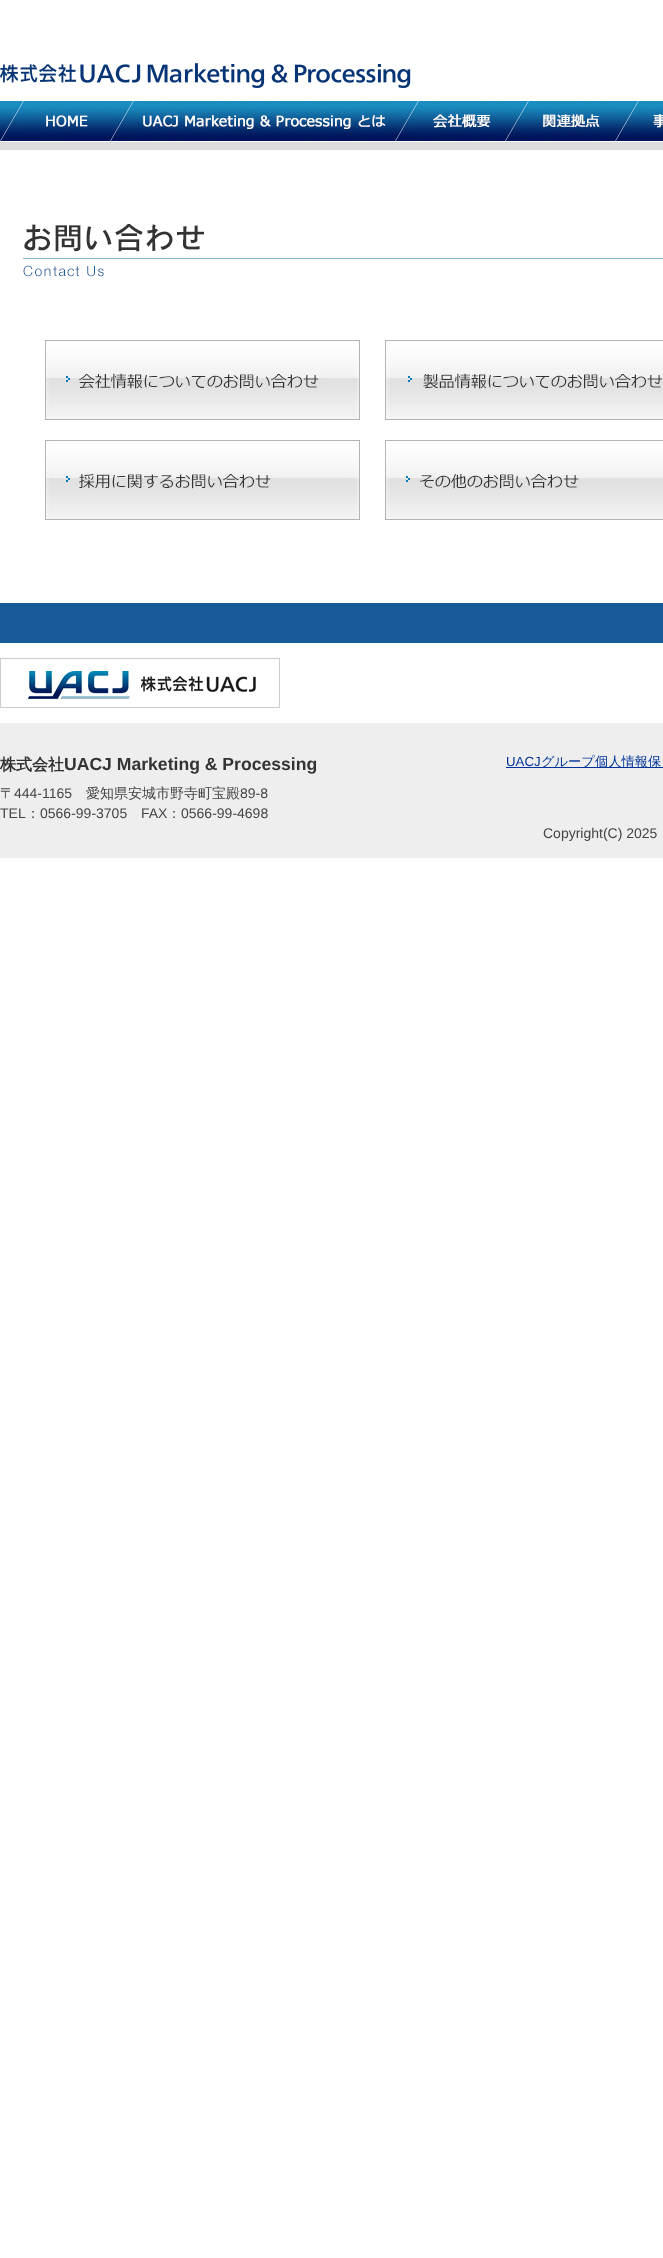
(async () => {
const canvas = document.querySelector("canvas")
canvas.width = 663
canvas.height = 2258
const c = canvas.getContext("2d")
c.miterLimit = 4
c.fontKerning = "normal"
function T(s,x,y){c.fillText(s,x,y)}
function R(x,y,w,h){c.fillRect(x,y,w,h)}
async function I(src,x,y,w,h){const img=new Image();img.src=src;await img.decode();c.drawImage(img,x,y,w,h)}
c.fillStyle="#fff"
R(0,0,663,2258)
await I("1.png",0,101,663,49)
await I("2.png",0,96,640,48)
await I("3.png",0,63,411,25)
await I("4.png",40,109,70,32)
await I("5.png",134,101,261,40)
await I("6.png",419,101,86,40)
await I("7.png",529,101,86,40)
await I("8.png",639,102,24,31)
await I("9.png",23,224,640,53)
await I("10.png",45,340,315,80)
await I("11.png",385,340,278,80)
await I("12.png",45,440,315,80)
await I("13.png",385,440,278,80)
c.fillStyle="#175b98"
R(0,603,663,40)
await I("14.png",0,658,280,50)
c.fillStyle="#eee"
R(0,723,663,135)
c.font="bold 16px WenQuanYi Zen Hei"
c.fillStyle="#333"
T("株式会社",0,770)
c.font="bold 17.6px Liberation Sans"
T("UACJ Marketing & Processing",64,770)
c.font="500 14px WenQuanYi Zen Hei"
c.fillStyle="#444"
T("〒",0,798)
c.font="14px Liberation Sans"
T("444-1165",14,798)
c.font="500 14px WenQuanYi Zen Hei"
T("愛知県安城市野寺町宝殿",86,798)
c.font="14px Liberation Sans"
T("89-8",240,798)
T("TEL",0,818)
c.font="500 14px WenQuanYi Zen Hei"
T("：",26,818)
c.font="14px Liberation Sans"
T("0566-99-3705",40,818)
T("FAX",141,818)
c.font="500 14px WenQuanYi Zen Hei"
T("：",167,818)
c.font="14px Liberation Sans"
T("0566-99-4698",181,818)
c.font="13.25px Liberation Sans"
c.fillStyle="#039"
T("UACJ",506,766)
R(506,767,157,1)
c.font="500 13.25px WenQuanYi Zen Hei"
T("グループ個人情報保",541,766)
c.font="14px Liberation Sans"
c.fillStyle="#444"
T("Copyright(C) 2025",543,838)
})()
